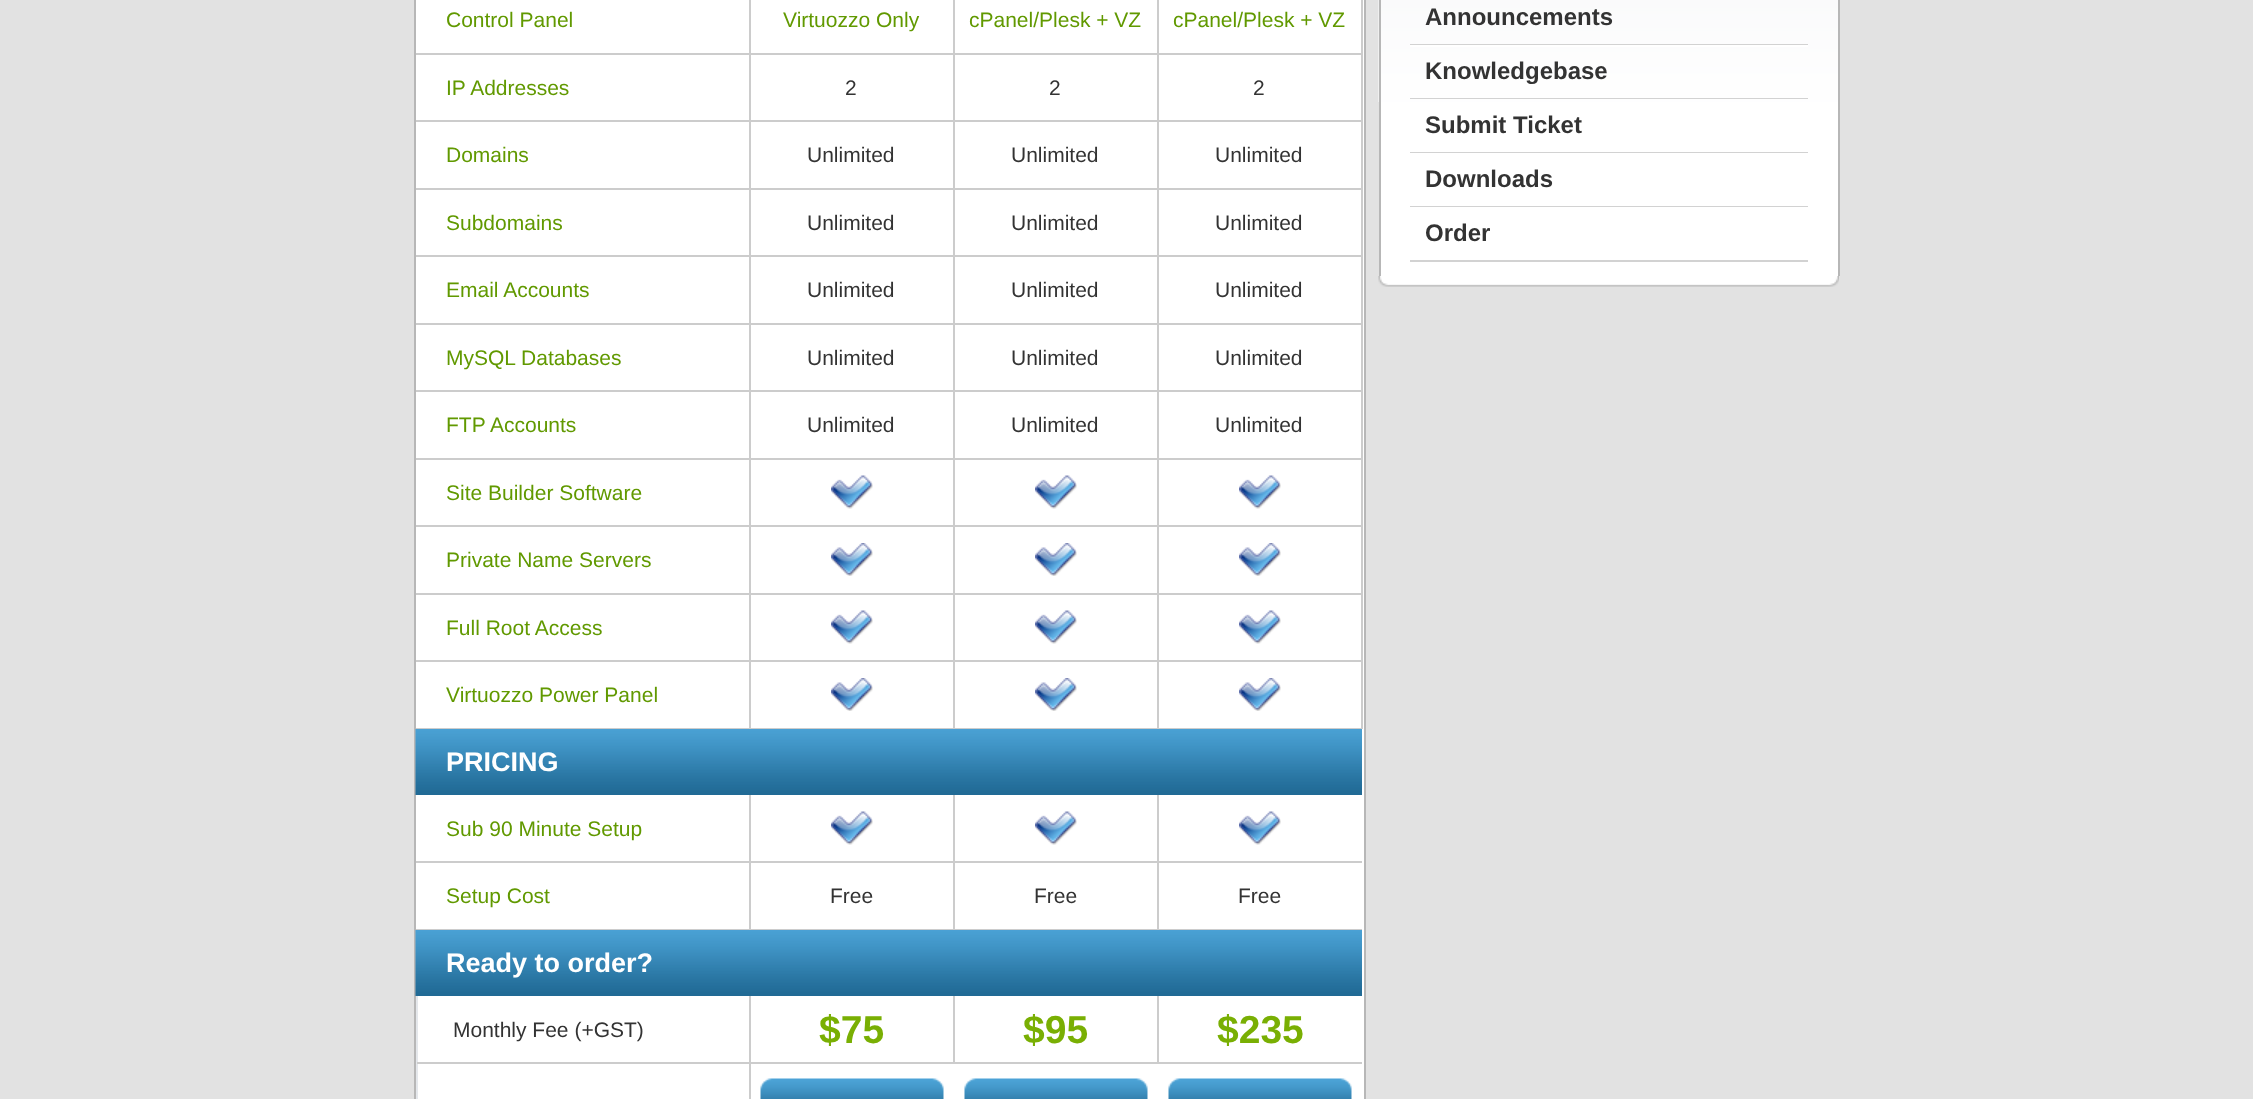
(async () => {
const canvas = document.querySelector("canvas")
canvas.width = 2253
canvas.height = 1099
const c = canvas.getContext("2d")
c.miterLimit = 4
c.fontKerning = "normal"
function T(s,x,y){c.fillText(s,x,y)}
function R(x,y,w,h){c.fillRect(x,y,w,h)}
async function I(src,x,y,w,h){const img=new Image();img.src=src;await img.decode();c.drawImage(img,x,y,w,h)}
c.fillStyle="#e2e2e2"
R(0,0,2253,1099)
c.fillStyle="#fff"
R(416,0,948,1099)
c.fillStyle="#b7b7b7"
R(1364,0,2,1099)
R(414,0,2,1099)
c.fillStyle="#ccc"
R(749,0,2,54)
R(416,53,334,2)
c.font="21px Liberation Sans"
c.fillStyle="#619900"
T("Control Panel",446,27)
c.fillStyle="#ccc"
R(749,54,2,135)
R(416,120,334,2)
c.fillStyle="#619900"
T("IP Addresses",446,95)
c.fillStyle="#ccc"
R(416,188,334,2)
c.fillStyle="#619900"
T("Domains",446,162)
c.fillStyle="#ccc"
R(749,189,2,135)
R(416,255,334,2)
c.fillStyle="#619900"
T("Subdomains",446,230)
c.fillStyle="#ccc"
R(416,323,334,2)
c.fillStyle="#619900"
T("Email Accounts",446,297)
c.fillStyle="#ccc"
R(749,324,2,135)
R(416,390,334,2)
c.fillStyle="#619900"
T("MySQL Databases",446,365)
c.fillStyle="#ccc"
R(416,458,334,2)
c.fillStyle="#619900"
T("FTP Accounts",446,432)
c.fillStyle="#ccc"
R(749,459,2,135)
R(416,525,334,2)
c.fillStyle="#619900"
T("Site Builder Software",446,500)
c.fillStyle="#ccc"
R(416,593,334,2)
c.fillStyle="#619900"
T("Private Name Servers",446,567)
c.fillStyle="#ccc"
R(749,594,2,135)
R(416,660,334,2)
c.fillStyle="#619900"
T("Full Root Access",446,635)
c.fillStyle="#ccc"
R(416,728,334,1)
c.fillStyle="#619900"
T("Virtuozzo Power Panel",446,702)
c.fillStyle="#ccc"
R(953,0,2,54)
R(750,53,204,2)
c.fillStyle="#619900"
T("Virtuozzo Only",783,27)
c.fillStyle="#ccc"
R(953,54,2,135)
R(750,120,204,2)
c.fillStyle="#333"
T("2",845,95)
c.fillStyle="#ccc"
R(750,188,204,2)
c.fillStyle="#333"
T("Unlimited",807,162)
c.fillStyle="#ccc"
R(953,189,2,135)
R(750,255,204,2)
c.fillStyle="#333"
T("Unlimited",807,230)
c.fillStyle="#ccc"
R(750,323,204,2)
c.fillStyle="#333"
T("Unlimited",807,297)
c.fillStyle="#ccc"
R(953,324,2,135)
R(750,390,204,2)
c.fillStyle="#333"
T("Unlimited",807,365)
c.fillStyle="#ccc"
R(750,458,204,2)
c.fillStyle="#333"
T("Unlimited",807,432)
await I("1.png",831,475,42,34)
c.fillStyle="#ccc"
R(953,459,2,135)
R(750,525,204,2)
await I("2.png",831,543,42,33)
R(750,593,204,2)
await I("1.png",831,610,42,34)
R(953,594,2,135)
R(750,660,204,2)
await I("2.png",831,678,42,33)
R(750,728,204,1)
R(1157,0,2,54)
R(954,53,204,2)
c.fillStyle="#619900"
T("cPanel/Plesk + VZ",969,27)
c.fillStyle="#ccc"
R(1157,54,2,135)
R(954,120,204,2)
c.fillStyle="#333"
T("2",1049,95)
c.fillStyle="#ccc"
R(954,188,204,2)
c.fillStyle="#333"
T("Unlimited",1011,162)
c.fillStyle="#ccc"
R(1157,189,2,135)
R(954,255,204,2)
c.fillStyle="#333"
T("Unlimited",1011,230)
c.fillStyle="#ccc"
R(954,323,204,2)
c.fillStyle="#333"
T("Unlimited",1011,297)
c.fillStyle="#ccc"
R(1157,324,2,135)
R(954,390,204,2)
c.fillStyle="#333"
T("Unlimited",1011,365)
c.fillStyle="#ccc"
R(954,458,204,2)
c.fillStyle="#333"
T("Unlimited",1011,432)
await I("3.png",1035,475,42,34)
c.fillStyle="#ccc"
R(1157,459,2,135)
R(954,525,204,2)
await I("4.png",1035,543,42,33)
R(954,593,204,2)
await I("3.png",1035,610,42,34)
R(1157,594,2,135)
R(954,660,204,2)
await I("4.png",1035,678,42,33)
R(954,728,204,1)
R(1361,0,2,54)
R(1158,53,204,2)
c.fillStyle="#619900"
T("cPanel/Plesk + VZ",1173,27)
c.fillStyle="#ccc"
R(1361,54,2,135)
R(1158,120,204,2)
c.fillStyle="#333"
T("2",1253,95)
c.fillStyle="#ccc"
R(1158,188,204,2)
c.fillStyle="#333"
T("Unlimited",1215,162)
c.fillStyle="#ccc"
R(1361,189,2,135)
R(1158,255,204,2)
c.fillStyle="#333"
T("Unlimited",1215,230)
c.fillStyle="#ccc"
R(1158,323,204,2)
c.fillStyle="#333"
T("Unlimited",1215,297)
c.fillStyle="#ccc"
R(1361,324,2,135)
R(1158,390,204,2)
c.fillStyle="#333"
T("Unlimited",1215,365)
c.fillStyle="#ccc"
R(1158,458,204,2)
c.fillStyle="#333"
T("Unlimited",1215,432)
await I("5.png",1239,475,42,34)
c.fillStyle="#ccc"
R(1361,459,2,135)
R(1158,525,204,2)
await I("6.png",1239,543,42,33)
R(1158,593,204,2)
await I("5.png",1239,610,42,34)
R(1361,594,2,135)
R(1158,660,204,2)
await I("6.png",1239,678,42,33)
R(1158,728,204,1)
await I("7.png",415,729,335,66)
c.font="bold 27px Liberation Sans"
c.fillStyle="#fff"
T("PRICING",446,771)
c.fillStyle="#ccc"
R(749,795,2,135)
R(416,861,334,2)
c.font="21px Liberation Sans"
c.fillStyle="#619900"
T("Sub 90 Minute Setup",446,836)
c.fillStyle="#ccc"
R(416,929,334,1)
c.fillStyle="#619900"
T("Setup Cost",446,903)
await I("8.png",750,729,204,66)
await I("1.png",831,811,42,34)
c.fillStyle="#ccc"
R(953,795,2,135)
R(750,861,204,2)
R(750,929,204,1)
c.fillStyle="#333"
T("Free",830,903)
await I("8.png",954,729,204,66)
await I("3.png",1035,811,42,34)
c.fillStyle="#ccc"
R(1157,795,2,135)
R(954,861,408,2)
R(954,929,408,1)
c.fillStyle="#333"
T("Free",1034,903)
await I("8.png",1158,729,204,66)
await I("5.png",1239,811,42,34)
T("Free",1238,903)
await I("7.png",415,930,335,66)
c.font="bold 27px Liberation Sans"
c.fillStyle="#fff"
T("Ready to order?",446,972)
c.fillStyle="#e4e7eb"
R(416,996,2,103)
c.fillStyle="#ccc"
R(749,996,2,103)
R(417,1062,333,2)
c.font="21px Liberation Sans"
c.fillStyle="#333"
T("Monthly Fee (+GST)",453,1037)
await I("8.png",750,930,204,66)
c.fillStyle="#ccc"
R(953,996,2,68)
R(750,1062,204,2)
c.font="bold 39px Liberation Sans"
c.fillStyle="#79af03"
T("$75",819,1043)
await I("9.png",760,1078,184,21)
await I("8.png",954,930,204,66)
c.fillStyle="#ccc"
R(1157,996,2,68)
R(954,1062,408,2)
c.fillStyle="#79af03"
T("$95",1023,1043)
await I("9.png",964,1078,184,21)
await I("8.png",1158,930,204,66)
T("$235",1217,1043)
await I("10.png",1168,1078,184,21)
await I("11.png",1378,276,461,11)
c.fillStyle="#fff"
R(1381,102,457,174)
await I("12.png",1378,0,460,102)
c.fillStyle="#b7b7b7"
R(1838,0,2,276)
R(1379,0,2,276)
c.fillStyle="#d2d2d2"
R(1410,44,398,1)
c.font="bold 24px Liberation Sans"
c.fillStyle="#333"
T("Announcements",1425,25)
c.fillStyle="#fff"
R(1410,45,398,2)
c.fillStyle="#d2d2d2"
R(1410,98,398,1)
c.fillStyle="#333"
T("Knowledgebase",1425,79)
c.fillStyle="#d2d2d2"
R(1410,152,398,1)
c.fillStyle="#333"
T("Submit Ticket",1425,133)
c.fillStyle="#d2d2d2"
R(1410,206,398,1)
c.fillStyle="#333"
T("Downloads",1425,187)
c.fillStyle="#d2d2d2"
R(1410,260,398,2)
c.fillStyle="#333"
T("Order",1425,241)
})()
